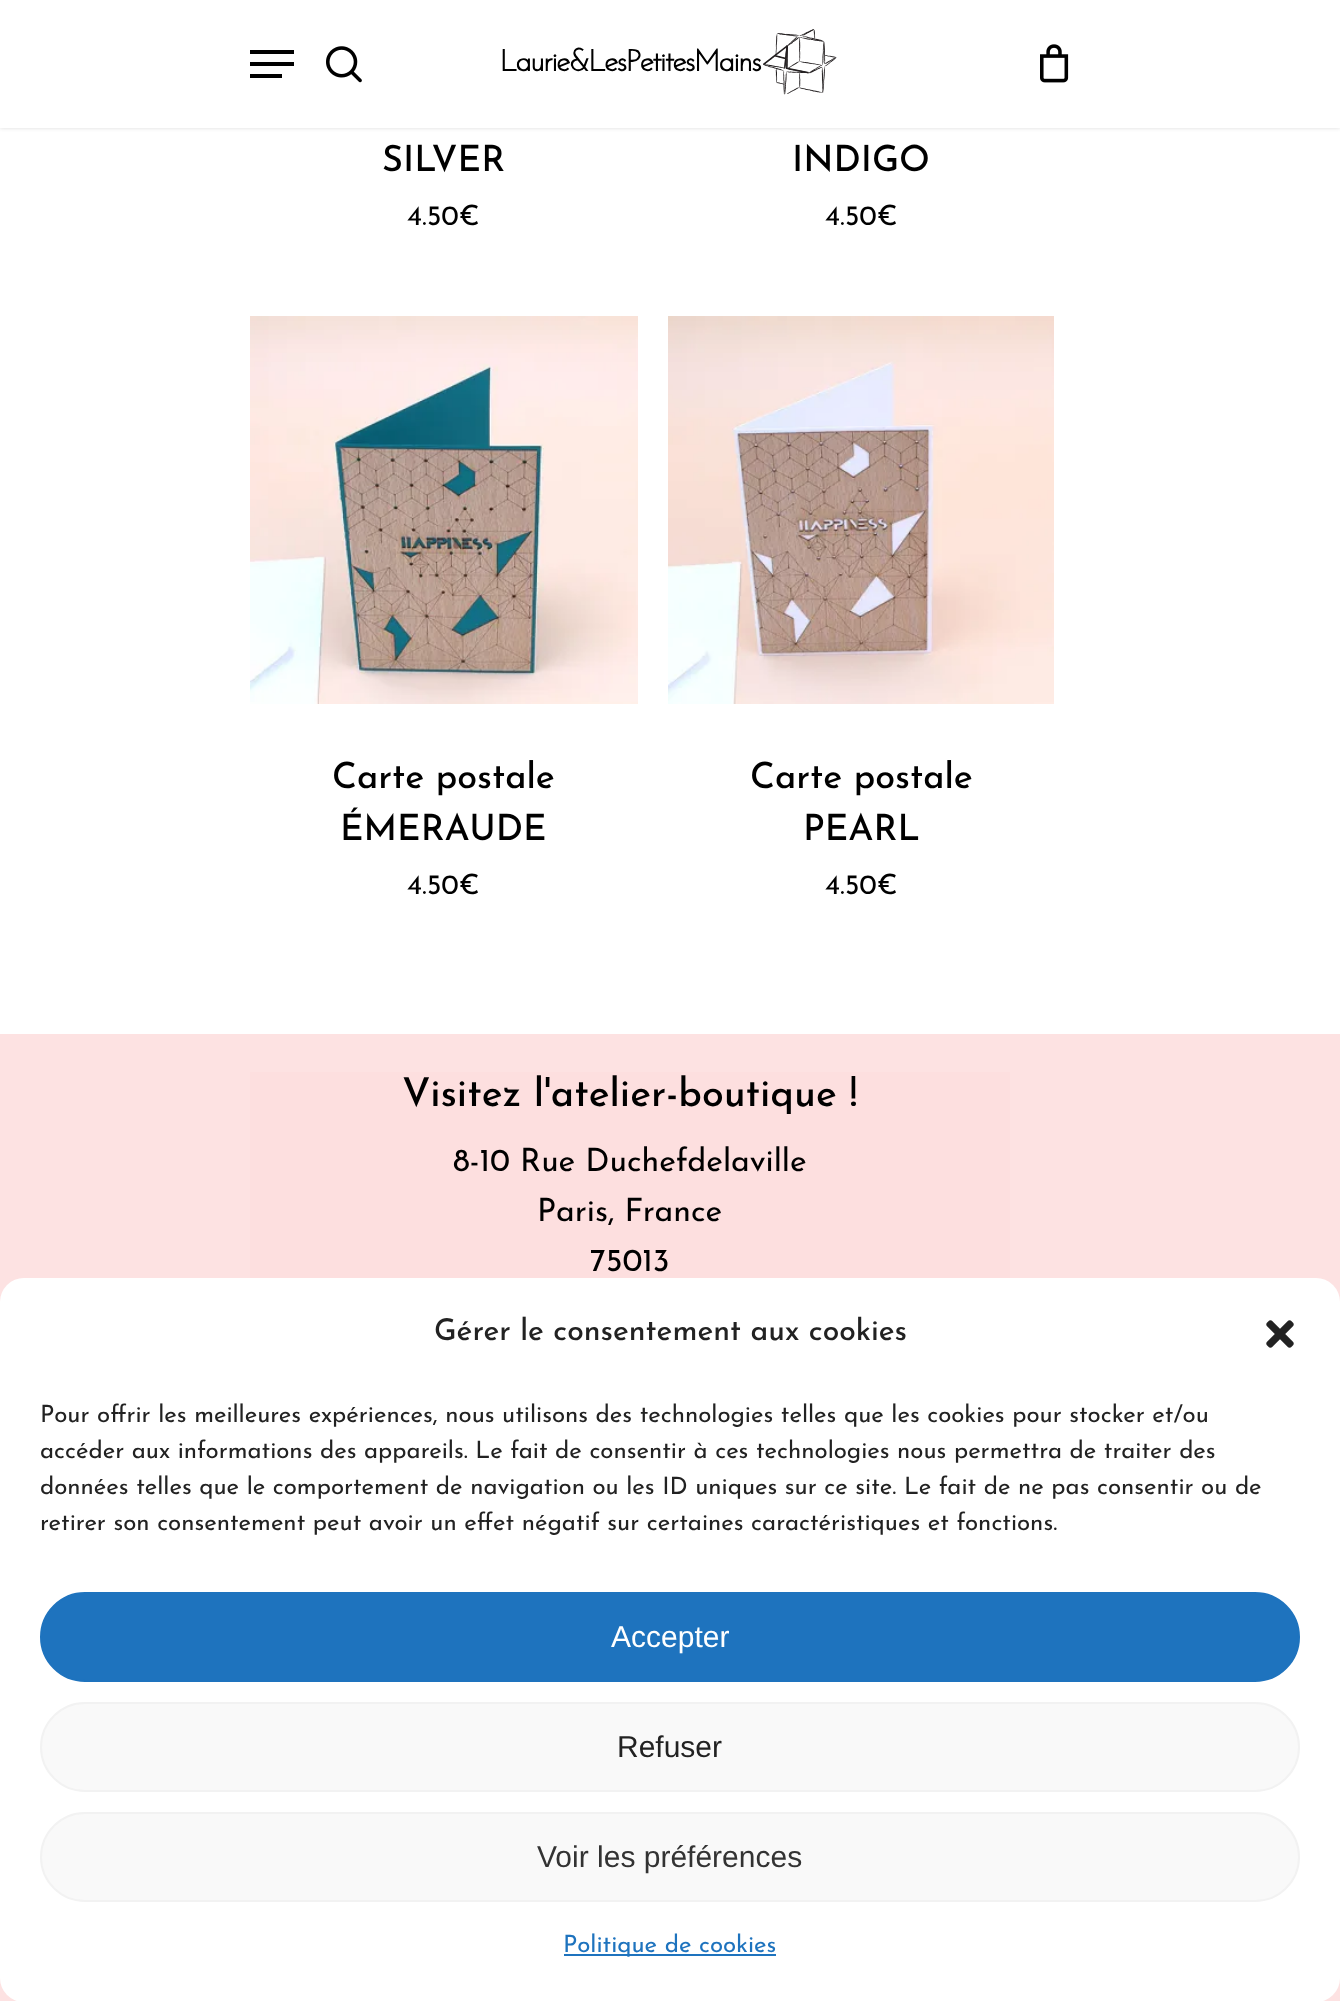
(async () => {
const canvas = document.querySelector("canvas")
canvas.width = 1340
canvas.height = 2001
const c = canvas.getContext("2d")
c.miterLimit = 4
c.fontKerning = "normal"
function T(s,x,y){c.fillText(s,x,y)}
function R(x,y,w,h){c.fillRect(x,y,w,h)}
function Q(x,y,w,h,r){c.beginPath();c.roundRect(x,y,w,h,r);c.fill()}
async function I(src,x,y,w,h){const img=new Image();img.src=src;await img.decode();c.drawImage(img,x,y,w,h)}
c.fillStyle="#fff"
R(0,0,1340,2001)
c.fillStyle="#00000024"
c.filter="blur(2px)"
c.beginPath()
c.rect(0,0,1340,128)
c.fill()
c.filter="none"
c.fillStyle="#fff"
R(0,0,1340,128)
await I("1.png",502,29,335,66)
c.fillStyle="#000"
R(250,50,44,4)
R(250,74,32,4)
R(250,62,44,4)
await I("2.png",326,46,36,37)
await I("3.png",1040,44,29,39)
c.font="500 36px Josefin Sans"
T("SILVER",382,171)
c.font="28px Josefin Sans"
T("4.50€",407,225)
c.font="500 36px Josefin Sans"
T("INDIGO",792,171)
c.font="28px Josefin Sans"
T("4.50€",825,225)
await I("4.png",250,316,388,388)
c.font="500 36px Josefin Sans"
T("Carte postale",332,788)
T("ÉMERAUDE",340,840)
c.font="28px Josefin Sans"
T("4.50€",407,894)
await I("5.png",668,316,386,388)
c.font="500 36px Josefin Sans"
T("Carte postale",750,788)
T("PEARL",803,840)
c.font="28px Josefin Sans"
T("4.50€",825,894)
c.fillStyle="#fde2e2"
R(0,1034,1340,967)
c.fillStyle="#fddfdf"
R(250,1072,760,206)
c.font="500 39.6px Josefin Sans"
c.fillStyle="#000"
T("Visitez l'atelier-boutique !",402,1106)
c.font="32px Josefin Sans"
T("8-10 Rue Duchefdelaville",453,1171)
T("Paris, France",537,1221)
T("75013",590,1271)
c.fillStyle="#fff"
Q(0,1278,1340,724,24)
c.font="500 30px Josefin Sans"
c.fillStyle="#222"
T("Gérer le consentement aux cookies",434,1340)
await I("6.png",1266,1320,28,28)
c.font="24px Josefin Sans"
T("Pour offrir les meilleures expériences, nous utilisons des technologies telles que les cookies pour stocker et/ou",40,1422)
T("accéder aux informations des appareils. Le fait de consentir à ces technologies nous permettra de traiter des",40,1458)
T("données telles que le comportement de navigation ou les ID uniques sur ce site. Le fait de ne pas consentir ou de",40,1494)
T("retirer son consentement peut avoir un effet négatif sur certaines caractéristiques et fonctions.",40,1530)
c.fillStyle="#1e73be"
c.beginPath()
c.roundRect(41,1593,1258,88,44)
c.fill()
c.strokeStyle="#1e73be"
c.lineWidth=2
c.stroke()
c.font="30px Liberation Sans"
c.fillStyle="#fff"
T("Accepter",611,1647)
c.fillStyle="#f9f9f9"
c.beginPath()
c.roundRect(41,1703,1258,88,44)
c.fill()
c.strokeStyle="#f2f2f2"
c.stroke()
c.fillStyle="#222"
T("Refuser",617,1757)
c.fillStyle="#f9f9f9"
c.beginPath()
c.roundRect(41,1813,1258,88,44)
c.fill()
c.stroke()
c.fillStyle="#333"
T("Voir les préférences",537,1867)
c.fillStyle="#1e73be"
R(564,1954,212,2)
c.font="24px Josefin Sans"
T("Politique de cookies",563,1952)
})()
